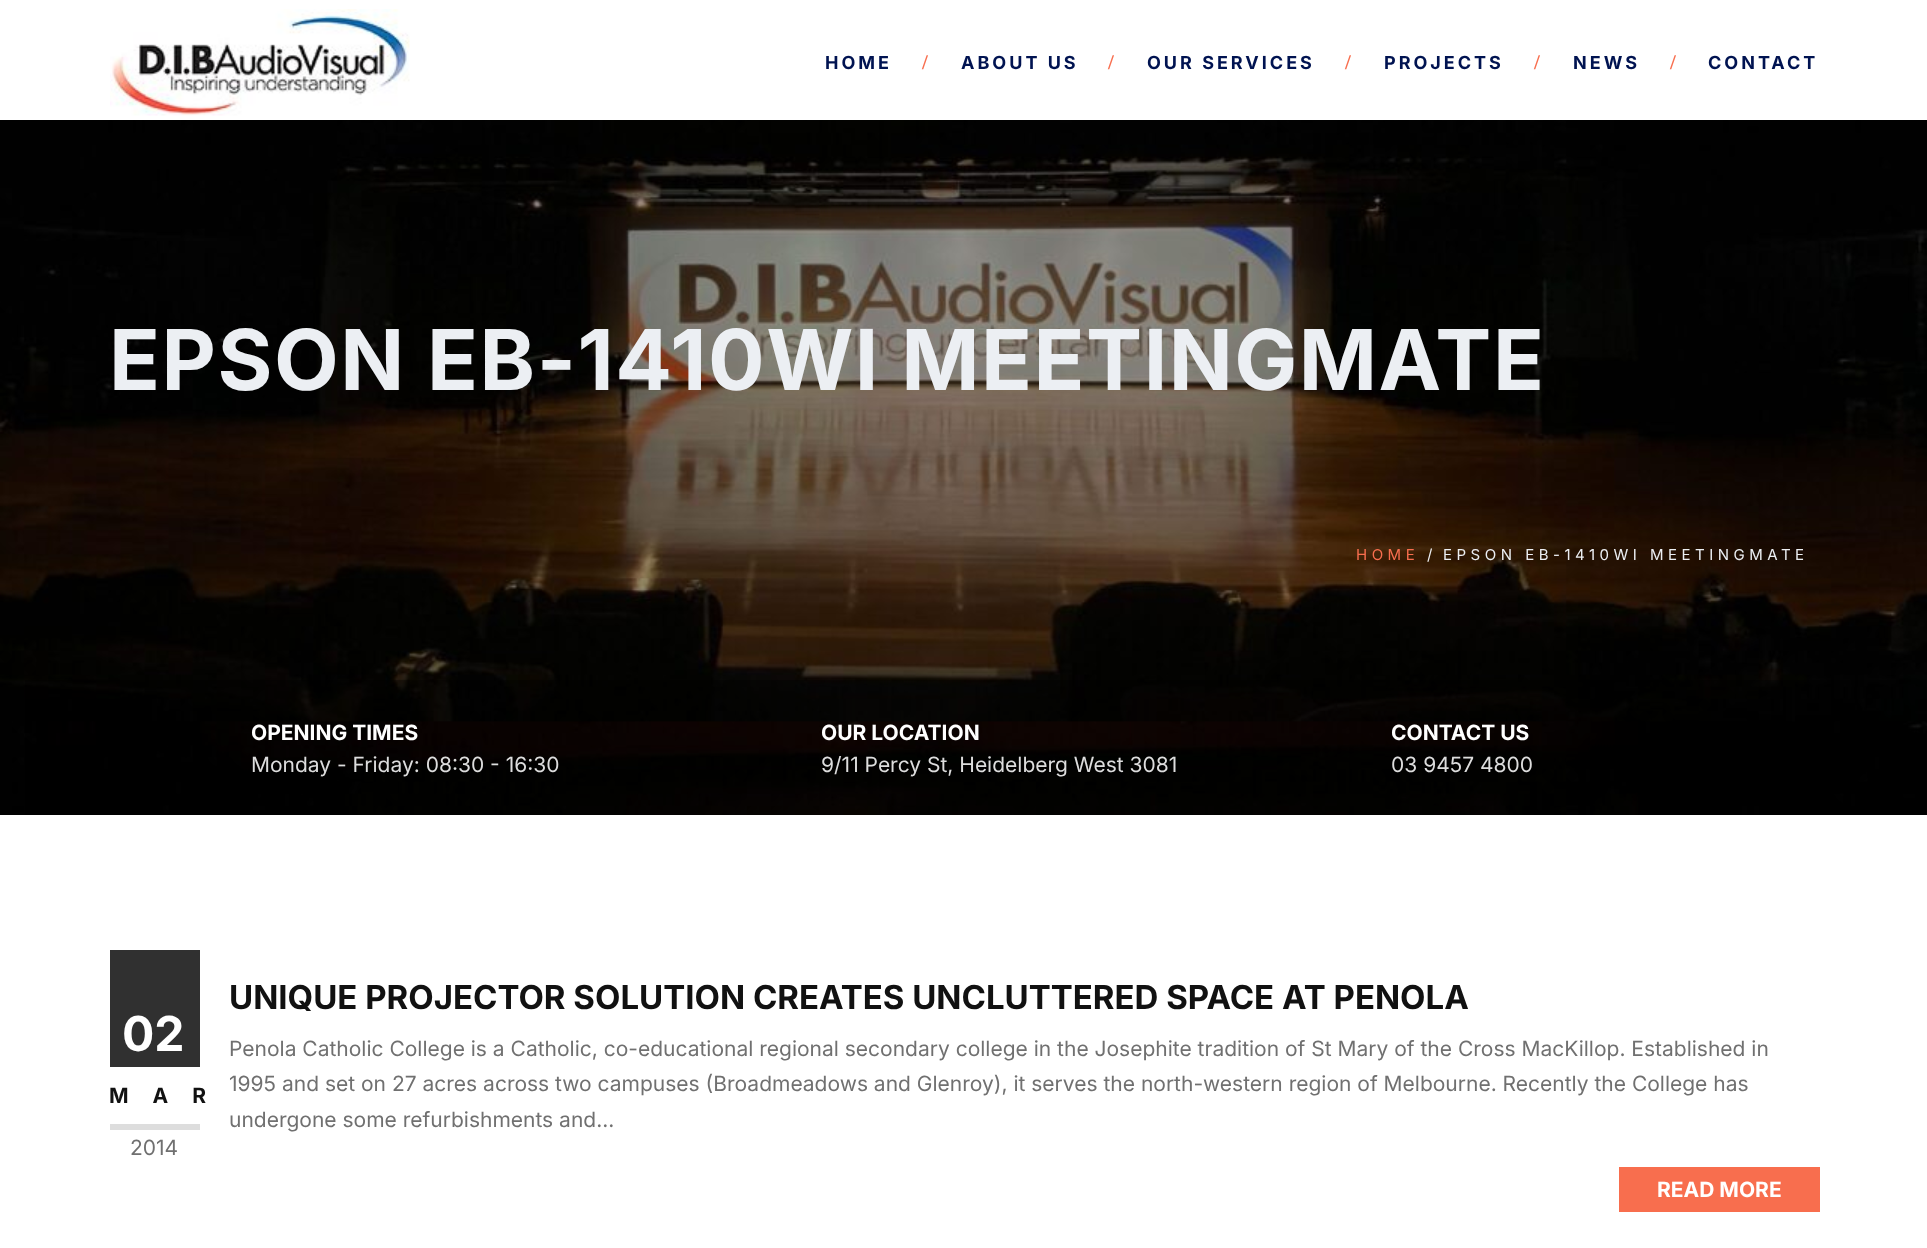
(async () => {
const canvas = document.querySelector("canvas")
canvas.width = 1927
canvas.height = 1248
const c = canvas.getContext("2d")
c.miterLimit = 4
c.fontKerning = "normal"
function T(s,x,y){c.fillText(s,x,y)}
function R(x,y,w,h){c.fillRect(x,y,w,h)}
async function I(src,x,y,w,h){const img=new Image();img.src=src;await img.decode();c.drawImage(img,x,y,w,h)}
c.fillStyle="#fff"
R(0,0,1927,1248)
await I("1.png",110,9,300,107)
c.letterSpacing="3px"
c.font="bold 18px Inter"
c.fillStyle="#001351"
T("HOME",825,69)
c.font="bold 21px Liberation Serif"
c.fillStyle="#f86e4e"
T("/",922,69)
c.font="bold 18px Inter"
c.fillStyle="#001351"
T("ABOUT US",961,69)
c.font="bold 21px Liberation Serif"
c.fillStyle="#f86e4e"
T("/",1108,69)
c.font="bold 18px Inter"
c.fillStyle="#001351"
T("OUR SERVICES",1147,69)
c.font="bold 21px Liberation Serif"
c.fillStyle="#f86e4e"
T("/",1345,69)
c.font="bold 18px Inter"
c.fillStyle="#001351"
T("PROJECTS",1384,69)
c.font="bold 21px Liberation Serif"
c.fillStyle="#f86e4e"
T("/",1534,69)
c.font="bold 18px Inter"
c.fillStyle="#001351"
T("NEWS",1573,69)
c.font="bold 21px Liberation Serif"
c.fillStyle="#f86e4e"
T("/",1670,69)
c.font="bold 18px Inter"
c.fillStyle="#001351"
T("CONTACT",1708,69)
await I("2.png",0,120,1927,695)
c.letterSpacing="1.5px"
c.font="bold 84px Inter"
c.fillStyle="#eceff3"
T("EPSON EB-1410WI MEETINGMATE",109,390)
c.letterSpacing="4.5px"
c.font="15px Inter"
c.fillStyle="#f86e4e"
T("HOME",1356,560)
c.fillStyle="#eceff3"
T("/",1427,560)
T("EPSON EB-1410WI MEETINGMATE",1443,560)
c.fillStyle="#0000004d"
R(25,680,1901,135)
c.letterSpacing="0px"
c.font="bold 21px Inter"
c.fillStyle="#fff"
T("OPENING TIMES",251,740)
c.font="21px Inter"
c.fillStyle="#ddd"
T("Monday - Friday: 08:30 - 16:30",251,772)
c.font="bold 21px Inter"
c.fillStyle="#fff"
T("OUR LOCATION",821,740)
c.font="21px Inter"
c.fillStyle="#ddd"
T("9/11 Percy St, Heidelberg West 3081",821,772)
c.font="bold 21px Inter"
c.fillStyle="#fff"
T("CONTACT US",1391,740)
c.font="21px Inter"
c.fillStyle="#ddd"
T("03 9457 4800",1391,772)
c.fillStyle="#303030"
R(110,950,90,117)
c.font="bold 48px Inter"
c.fillStyle="#fff"
T("02",122,1051)
c.fillStyle="#ddd"
R(110,1124,90,6)
c.letterSpacing="24px"
c.font="bold 21px Inter"
c.fillStyle="#111"
T("MAR",109,1103)
c.letterSpacing="0px"
c.font="21px Inter"
c.fillStyle="#707070"
T("2014",130,1155)
c.font="bold 33px Inter"
c.fillStyle="#111"
T("UNIQUE PROJECTOR SOLUTION CREATES UNCLUTTERED SPACE AT PENOLA",229,1009)
c.font="21px Inter"
c.fillStyle="#707070"
T("Penola Catholic College is a Catholic, co-educational regional secondary college in the Josephite tradition of St Mary of the Cross MacKillop. Established in",229,1056)
T("1995 and set on 27 acres across two campuses (Broadmeadows and Glenroy), it serves the north-western region of Melbourne. Recently the College has",229,1091)
T("undergone some refurbishments and...",229,1127)
c.fillStyle="#f86e4e"
R(1619,1167,201,45)
c.font="bold 21px Inter"
c.fillStyle="#fff"
T("READ MORE",1657,1197)
})()
